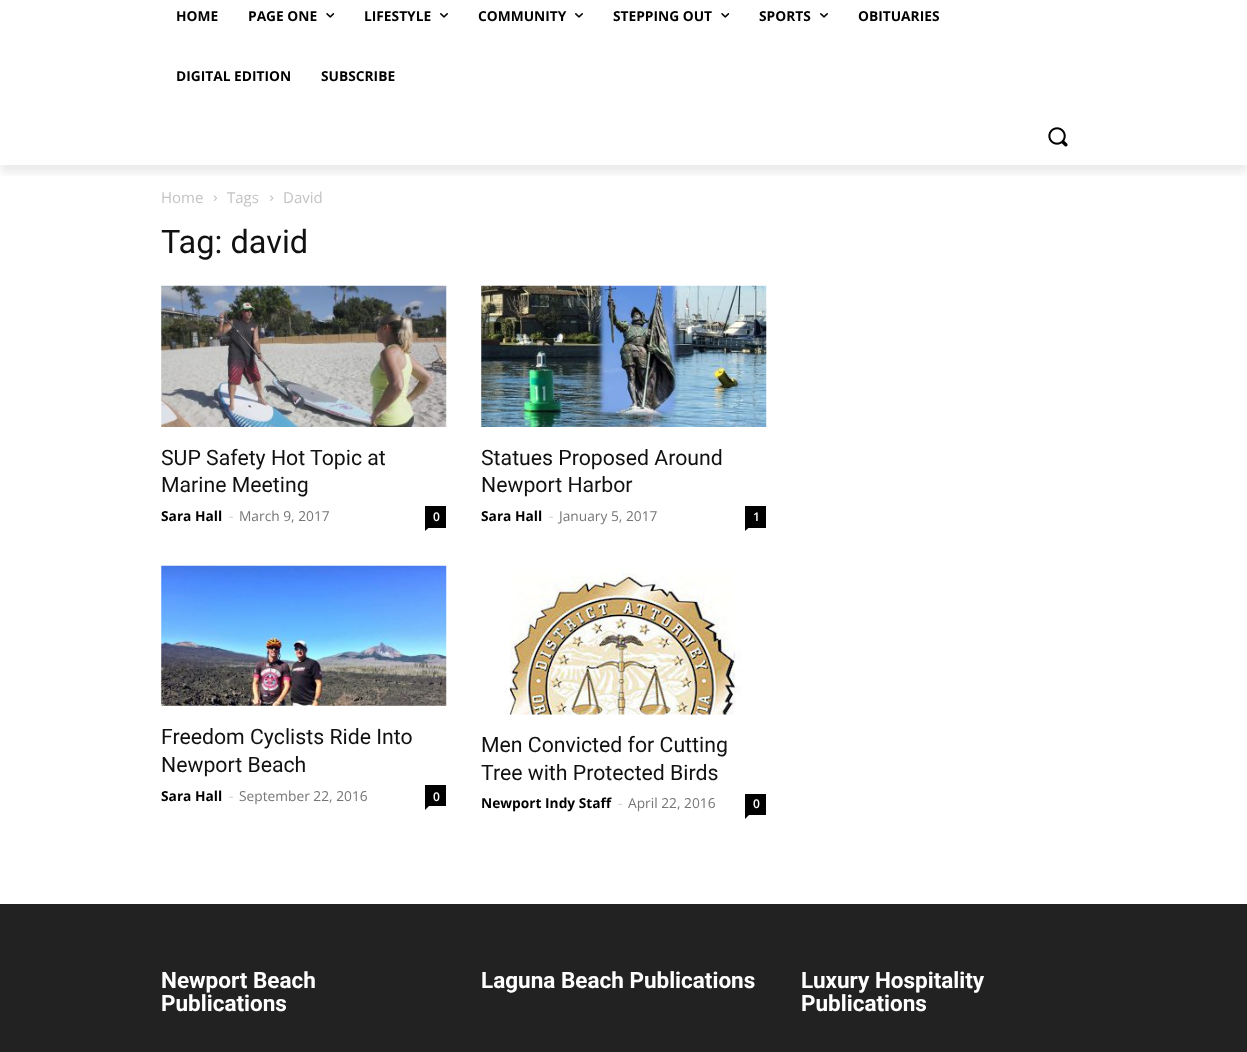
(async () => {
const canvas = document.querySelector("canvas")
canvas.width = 1247
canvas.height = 1052
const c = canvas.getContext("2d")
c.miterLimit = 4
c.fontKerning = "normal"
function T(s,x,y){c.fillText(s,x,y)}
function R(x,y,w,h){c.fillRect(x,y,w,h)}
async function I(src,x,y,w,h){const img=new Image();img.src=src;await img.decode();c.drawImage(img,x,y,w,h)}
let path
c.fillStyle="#fff"
R(0,0,1247,1052)
c.save()
c.beginPath()
c.rect(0,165,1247,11)
c.clip()
c.fillStyle="#00000014"
c.filter="blur(5px)"
c.beginPath()
c.rect(0,-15,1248,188)
c.fill()
c.filter="none"
c.restore()
c.font="bold 13.75px Open Sans"
c.fillStyle="#000"
T("HOME",176,21)
T("PAGE ONE",248,21)
await I("1.png",326,13,9,5)
T("LIFESTYLE",364,21)
await I("2.png",440,13,8,5)
T("COMMUNITY",478,21)
await I("2.png",575,13,8,5)
T("STEPPING OUT",613,21)
await I("1.png",721,13,9,5)
T("SPORTS",759,21)
await I("2.png",820,13,8,5)
T("OBITUARIES",858,21)
T("DIGITAL EDITION",176,81)
T("SUBSCRIBE",321,81)
await I("3.png",1048,127,20,20)
c.font="15px Open Sans"
c.fillStyle="#c3c3c3"
T("Home",161,203)
await I("4.png",213,195,4,6)
T("Tags",227,203)
await I("5.png",270,195,4,6)
T("David",283,203)
c.font="32.5px Roboto"
c.fillStyle="#111"
T("Tag: david",161,253)
await I("6.png",161,285,286,142)
c.font="21.25px Roboto"
T("SUP Safety Hot Topic at",161,465)
T("Marine Meeting",161,492)
c.font="bold 13.75px Open Sans"
c.fillStyle="#000"
T("Sara Hall",161,521)
c.font="13.75px Open Sans"
c.fillStyle="#ccc"
T("-",229,521)
c.fillStyle="#767676"
T("March 9, 2017",239,521)
c.fillStyle="#000"
R(425,506,21,22)
c.font="600 12px Open Sans"
c.fillStyle="#fff"
T("0",433,521)
c.fillStyle="#000"
path = new Path2D("M425 527.5h4l-4 3.5z")
c.fill(path)
await I("7.png",481,285,286,142)
c.font="21.25px Roboto"
c.fillStyle="#111"
T("Statues Proposed Around",481,465)
T("Newport Harbor",481,492)
c.font="bold 13.75px Open Sans"
c.fillStyle="#000"
T("Sara Hall",481,521)
c.font="13.75px Open Sans"
c.fillStyle="#ccc"
T("-",549,521)
c.fillStyle="#767676"
T("January 5, 2017",559,521)
c.fillStyle="#000"
R(745,506,21,22)
c.font="600 12px Open Sans"
c.fillStyle="#fff"
T("1",753,521)
c.fillStyle="#000"
path = new Path2D("M745 527.5h4l-4 3.5z")
c.fill(path)
await I("8.png",161,565,286,141)
c.font="21.25px Roboto"
c.fillStyle="#111"
T("Freedom Cyclists Ride Into",161,744)
T("Newport Beach",161,772)
c.font="bold 13.75px Open Sans"
c.fillStyle="#000"
T("Sara Hall",161,801)
c.font="13.75px Open Sans"
c.fillStyle="#ccc"
T("-",229,801)
c.fillStyle="#767676"
T("September 22, 2016",239,801)
c.fillStyle="#000"
R(425,785,21,21)
c.font="600 12px Open Sans"
c.fillStyle="#fff"
T("0",433,801)
c.fillStyle="#000"
path = new Path2D("M425 806h4l-4 4z")
c.fill(path)
await I("9.png",504,569,237,146)
c.font="21.25px Roboto"
c.fillStyle="#111"
T("Men Convicted for Cutting",481,752)
T("Tree with Protected Birds",481,780)
c.font="bold 13.75px Open Sans"
c.fillStyle="#000"
T("Newport Indy Staff",481,808)
c.font="13.75px Open Sans"
c.fillStyle="#ccc"
T("-",618,808)
c.fillStyle="#767676"
T("April 22, 2016",628,808)
c.fillStyle="#000"
R(745,794,21,21)
c.font="600 12px Open Sans"
c.fillStyle="#fff"
T("0",753,808)
c.fillStyle="#000"
path = new Path2D("M745 815h4l-4 4z")
c.fill(path)
c.fillStyle="#222"
R(0,904,1247,148)
c.font="bold 22.5px Roboto"
c.fillStyle="#fff"
T("Newport Beach",161,988)
T("Publications",161,1011)
T("Laguna Beach Publications",481,988)
T("Luxury Hospitality",801,988)
T("Publications",801,1011)
})()
